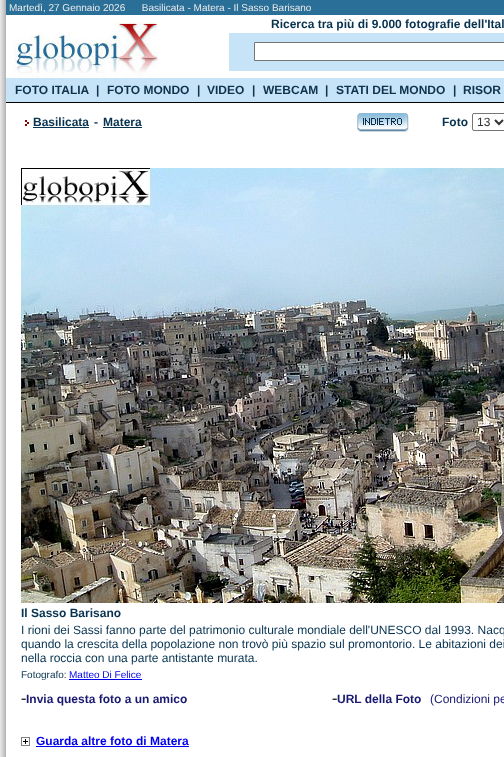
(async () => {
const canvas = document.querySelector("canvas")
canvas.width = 504
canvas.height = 757
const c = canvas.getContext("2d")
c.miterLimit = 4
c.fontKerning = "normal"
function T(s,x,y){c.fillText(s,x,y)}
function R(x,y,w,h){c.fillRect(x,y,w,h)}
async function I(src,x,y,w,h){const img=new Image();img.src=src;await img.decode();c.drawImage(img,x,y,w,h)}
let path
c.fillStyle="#e4e4e4"
R(0,0,504,757)
await I("1.png",1,0,5,103)
c.fillStyle="#2a6f98"
R(6,0,498,15)
c.font="10px Liberation Sans"
c.fillStyle="#ebebeb"
T("Martedì, 27 Gennaio 2026      Basilicata - Matera - Il Sasso Barisano",9,11)
c.fillStyle="#fff"
R(6,15,498,63)
await I("2.png",14,22,144,56)
c.font="bold 12px Liberation Sans"
c.fillStyle="#073350"
T("Ricerca tra più di 9.000 fotografie dell'Ital",271,28)
c.fillStyle="#c7e3f8"
R(229,33,275,38)
c.fillStyle="#fff"
c.beginPath()
c.rect(254.5,42.5,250,18)
c.fill()
c.strokeStyle="#767676"
c.stroke()
c.fillStyle="#c7e3f8"
R(6,78,498,24)
c.fillStyle="#0f334d"
T("FOTO ITALIA",15,94)
T("|",96,94)
T("FOTO MONDO",107,94)
T("|",197,94)
T("VIDEO",207,94)
T("|",252,94)
T("WEBCAM",263,94)
T("|",325,94)
T("STATI DEL MONDO",336,94)
T("|",453,94)
T("RISOR",463,94)
c.fillStyle="#000"
R(6,102,498,1)
await I("3.png",1,103,5,654)
c.fillStyle="#fff"
R(6,103,498,654)
await I("4.png",25,120,4,6)
c.fillStyle="#073350"
T("Basilicata",33,126)
R(33,127,56,1)
T("-",94,126)
T("Matera",103,126)
R(103,127,39,1)
await I("5.png",357,113,52,19)
T("Foto",442,126)
c.beginPath()
c.roundRect(472.5,113.5,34,17,1.5)
c.stroke()
path = new Path2D("M495 120l4 4l4-4")
c.strokeStyle="#333"
c.lineWidth=2
c.stroke(path)
c.font="12px Liberation Sans"
c.fillStyle="#333"
T("13",477,126)
await I("6.png",21,168,483,435)
c.font="bold 12px Liberation Sans"
c.fillStyle="#073350"
T("Il Sasso Barisano",21,617)
c.font="12px Liberation Sans"
T("I rioni dei Sassi fanno parte del patrimonio culturale mondiale dell'UNESCO dal 1993. Nacq",21,634)
T("quando la crescita della popolazione non trovò più spazio sul promontorio. Le abitazioni dei",21,648)
T("nella roccia con una parte antistante murata.",21,662)
c.font="10px Liberation Sans"
T("Fotografo:",21,678)
c.fillStyle="#00e"
T("Matteo Di Felice",69,678)
R(69,679,73,1)
c.font="16px Liberation Serif"
c.fillStyle="#000"
T("-",21,703)
c.font="bold 12px Liberation Sans"
c.fillStyle="#191970"
T("Invia questa foto a un amico",26,703)
c.font="16px Liberation Serif"
c.fillStyle="#000"
T("-",332,703)
c.font="bold 12px Liberation Sans"
c.fillStyle="#191970"
T("URL della Foto",337,703)
c.font="12px Liberation Sans"
T("(Condizioni pe",430,703)
await I("7.png",21,737,9,9)
c.font="bold 12px Liberation Sans"
c.fillStyle="#00e"
T("Guarda altre foto di Matera",36,745)
R(36,746,153,1)
})()
